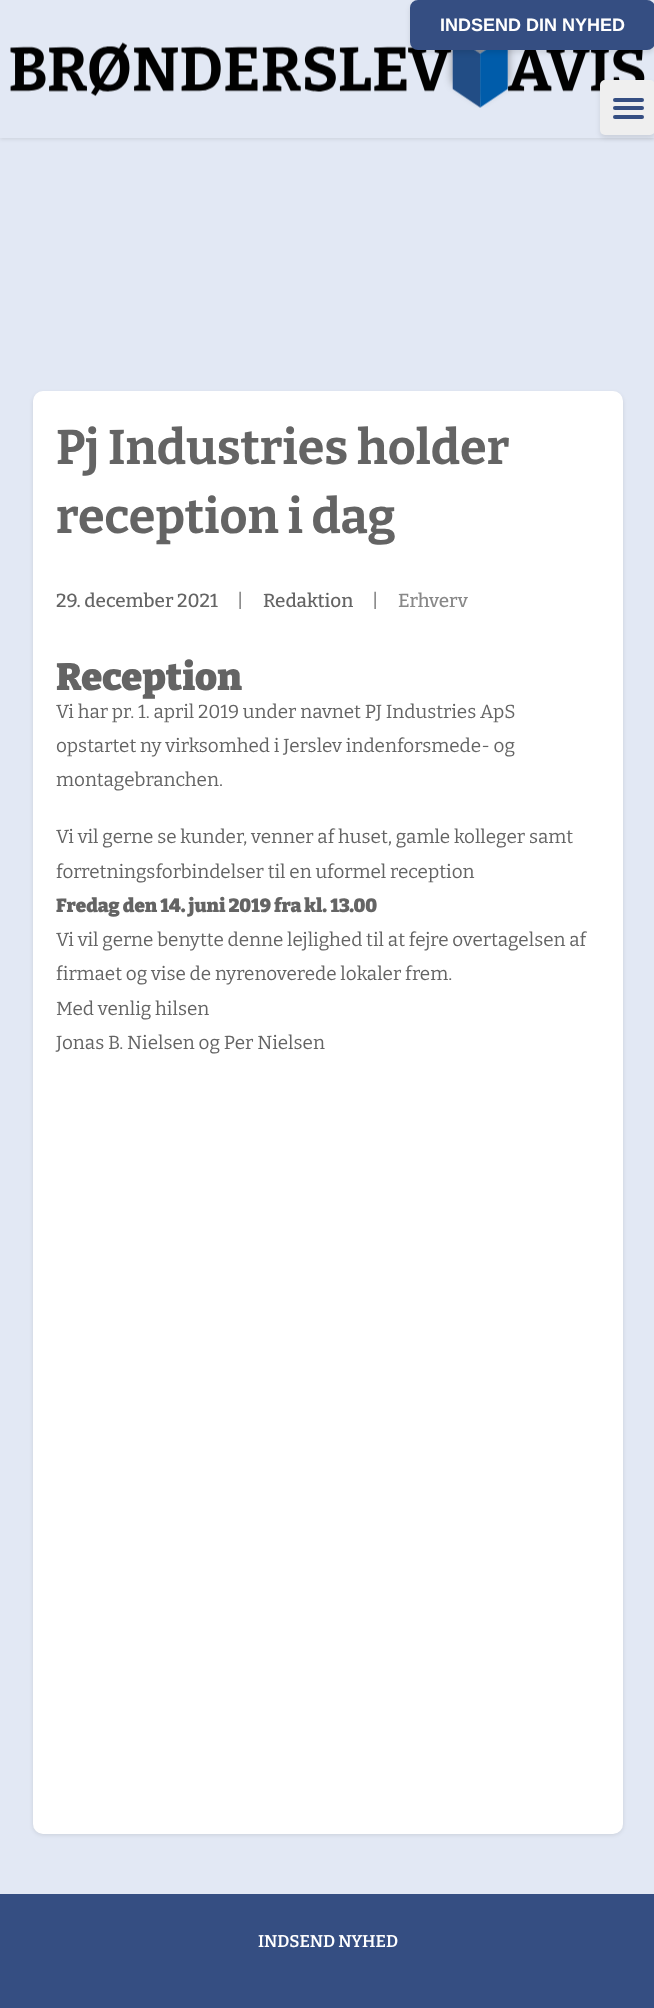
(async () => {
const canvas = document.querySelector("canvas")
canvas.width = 654
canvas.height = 2008
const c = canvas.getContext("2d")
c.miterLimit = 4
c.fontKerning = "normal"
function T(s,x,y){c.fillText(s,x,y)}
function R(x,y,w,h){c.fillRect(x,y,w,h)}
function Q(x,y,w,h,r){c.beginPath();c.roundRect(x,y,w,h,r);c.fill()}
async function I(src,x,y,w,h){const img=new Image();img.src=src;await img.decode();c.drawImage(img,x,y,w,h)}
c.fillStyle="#e2e8f4"
R(0,0,654,2008)
c.fillStyle="#0000001a"
c.filter="blur(2px)"
c.beginPath()
c.rect(0,1,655,138)
c.fill()
c.filter="none"
c.fillStyle="#e2e8f4"
R(0,0,654,138)
await I("1.png",10,42,635,66)
c.fillStyle="#0000001a"
c.filter="blur(2.5px)"
c.beginPath()
c.roundRect(410,3,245,50,8)
c.fill()
c.filter="none"
c.fillStyle="#354e82"
Q(410,0,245,50,8)
c.font="bold 18px Liberation Sans"
c.fillStyle="#fff"
T("INDSEND DIN NYHED",440,31)
c.fillStyle="#0000001a"
c.filter="blur(2.5px)"
c.beginPath()
c.roundRect(600,83,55,55,5)
c.fill()
c.filter="none"
c.fillStyle="#efefef"
Q(600,80,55,55,5)
c.fillStyle="#354e82"
Q(613,98,31,4,2)
Q(613,106,31,4,2)
Q(613,115,31,4,2)
c.fillStyle="#0000001a"
c.filter="blur(2px)"
c.beginPath()
c.roundRect(33,393,590,1442,10)
c.fill()
c.filter="none"
c.fillStyle="#fff"
Q(33,391,590,1443,10)
c.font="bold 48.5px Bitter"
c.fillStyle="#646464"
T("Pj Industries holder",56,464)
T("reception i dag",56,533)
c.font="500 18.9px Bitter"
T("29. december 2021",56,607)
c.font="18.9px Bitter"
T("|",237,607)
c.font="500 18.9px Bitter"
T("Redaktion",263,607)
c.font="18.9px Bitter"
T("|",372,607)
c.font="500 18.9px Bitter"
c.fillStyle="#888"
T("Erhverv",398,607)
c.font="900 38px Bitter"
c.fillStyle="#646464"
T("Reception",56,690)
c.font="18.9px Bitter"
T("Vi har pr. 1. april 2019 under navnet PJ Industries ApS",56,718)
T("opstartet ny virksomhed i Jerslev indenforsmede- og",56,752)
T("montagebranchen.",56,786)
T("Vi vil gerne se kunder, venner af huset, gamle kolleger samt",56,843)
T("forretningsforbindelser til en uformel reception",56,878)
c.font="900 18.9px Bitter"
T("Fredag den 14. juni 2019 fra kl. 13.00",56,912)
c.font="18.9px Bitter"
T("Vi vil gerne benytte denne lejlighed til at fejre overtagelsen af",56,946)
T("firmaet og vise de nyrenoverede lokaler frem.",56,980)
T("Med venlig hilsen",56,1015)
T("Jonas B. Nielsen og Per Nielsen",56,1049)
c.fillStyle="#354e82"
R(0,1894,654,114)
c.font="600 17px Bitter"
c.fillStyle="#fff"
T("INDSEND NYHED",258,1947)
})()
